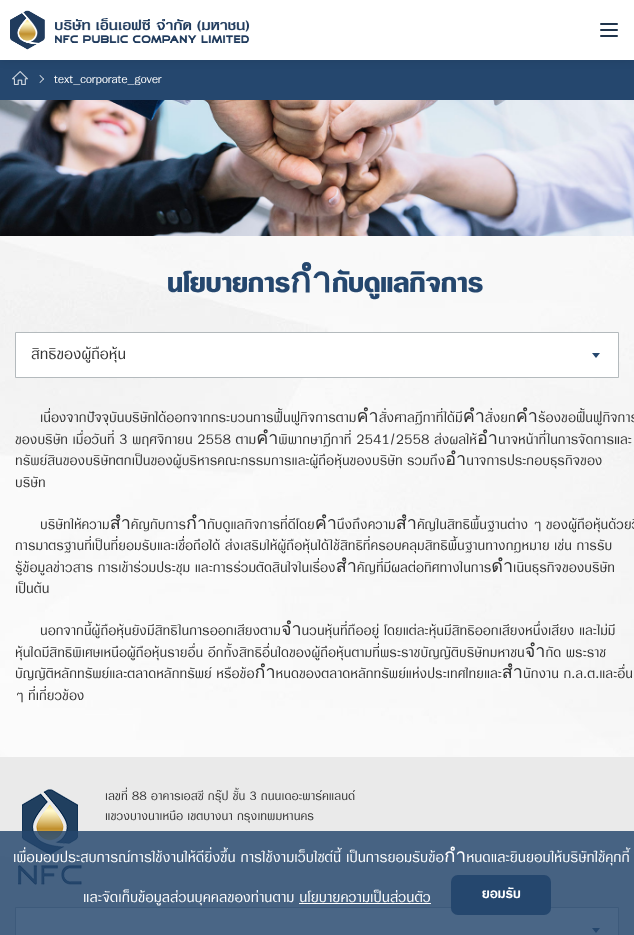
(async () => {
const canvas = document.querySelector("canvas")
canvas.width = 634
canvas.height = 935
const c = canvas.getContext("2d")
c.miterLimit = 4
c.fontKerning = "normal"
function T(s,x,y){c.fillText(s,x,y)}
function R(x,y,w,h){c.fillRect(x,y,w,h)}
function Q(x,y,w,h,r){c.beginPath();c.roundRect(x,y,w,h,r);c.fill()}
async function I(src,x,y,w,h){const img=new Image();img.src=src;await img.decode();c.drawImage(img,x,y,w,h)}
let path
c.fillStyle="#fff"
R(0,0,634,935)
c.fillStyle="#25476e"
R(0,60,634,40)
await I("2.png",12,71,16,14)
c.fillStyle="#fff"
path = new Path2D("M39.5 75.5l.5-.5l4 4l-.5 .5z")
c.fill(path)
c.fillStyle="#0000001a"
c.filter="blur(5px)"
c.beginPath()
c.rect(0,0,634,60)
c.fill()
c.filter="none"
c.fillStyle="#fff"
R(0,0,634,60)
await I("1.png",10,10,240,40)
c.fillStyle="#1f344c"
Q(600,23,18,2,1)
Q(600,29,18,2,1)
Q(600,35,18,2,1)
c.fillStyle="#fff"
path = new Path2D("M39.5 82.5l4-4l.5 .5l-4 4z")
c.fill(path)
c.font="14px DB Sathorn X"
T("text_corporate_gover",54,83)
await I("3.png",0,100,634,136)
await I("4.png",0,236,634,521)
c.font="bold 36px DB Sathorn X"
c.fillStyle="#25476e"
T("นโยบายการกำกับดูแลกิจการ",167,292)
c.fillStyle="#fff"
c.beginPath()
c.rect(15.5,332.5,603,45)
c.fill()
c.strokeStyle="#b4babd"
c.stroke()
c.font="20px DB Sathorn X"
c.fillStyle="#333"
T("สิทธิของผู้ถือหุ้น",31,359)
c.fillStyle="#25476e"
path = new Path2D("M592 353h8l-4 5z")
c.fill(path)
c.font="18px DB Sathorn X"
c.fillStyle="#333"
T("เนื่องจากปัจจุบันบริษัทได้ออกจากกระบวนการฟื้นฟูกิจการตามคำสั่งศาลฎีกาที่ได้มีคำสั่งยกคำร้องขอฟื้นฟูกิจการ",40,422)
T("ของบริษัท เมื่อวันที่ 3 พฤศจิกายน 2558 ตามคำพิพากษาฎีกาที่ 2541/2558 ส่งผลให้อำนาจหน้าที่ในการจัดการและ",15,444)
T("ทรัพย์สินของบริษัทตกเป็นของผู้บริหารคณะกรรมการและผู้ถือหุ้นของบริษัท รวมถึงอำนาจการประกอบธุรกิจของ",15,465)
T("บริษัท",15,487)
T("บริษัทให้ความสำคัญกับการกำกับดูแลกิจการที่ดีโดยคำนึงถึงความสำคัญในสิทธิพื้นฐานต่าง ๆ ของผู้ถือหุ้นด้วยวิธี",40,529)
T("การมาตรฐานที่เป็นที่ยอมรับและเชื่อถือได้ ส่งเสริมให้ผู้ถือหุ้นได้ใช้สิทธิที่ครอบคลุมสิทธิพื้นฐานทางกฎหมาย เช่น การรับ",15,550)
T("รู้ข้อมูลข่าวสาร การเข้าร่วมประชุม และการร่วมตัดสินใจในเรื่องสำคัญที่มีผลต่อทิศทางในการดำเนินธุรกิจของบริษัท",15,572)
T("เป็นต้น",15,593)
T("นอกจากนี้ผู้ถือหุ้นยังมีสิทธิในการออกเสียงตามจำนวนหุ้นที่ถืออยู่ โดยแต่ละหุ้นมีสิทธิออกเสียงหนึ่งเสียง และไม่มี",40,635)
T("หุ้นใดมีสิทธิพิเศษเหนือผู้ถือหุ้นรายอื่น อีกทั้งสิทธิอื่นใดของผู้ถือหุ้นตามที่พระราชบัญญัติบริษัทมหาชนจำกัด พระราช",15,657)
T("บัญญัติหลักทรัพย์และตลาดหลักทรัพย์ หรือข้อกำหนดของตลาดหลักทรัพย์แห่งประเทศไทยและสำนักงาน ก.ล.ต.และอื่น",15,678)
T("ๆ ที่เกี่ยวข้อง",15,700)
await I("5.png",0,757,634,178)
await I("6.png",18,789,64,96)
c.font="16px DB Sathorn X"
T("เลขที่ 88 อาคารเอสซี กรุ๊ป ชั้น 3 ถนนเดอะพาร์คแลนด์",105,800)
T("แขวงบางนาเหนือ เขตบางนา กรุงเทพมหานคร",105,820)
c.fillStyle="#fff"
c.beginPath()
c.rect(15.5,907.5,603,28)
c.fill()
c.stroke()
c.fillStyle="#25476e"
path = new Path2D("M592 928h8l-4 5z")
c.fill(path)
c.fillStyle="#25476ed4"
R(0,831,634,104)
c.font="19px DB Sathorn X"
c.fillStyle="#fff"
T("เพื่อมอบประสบการณ์การใช้งานให้ดียิ่งขึ้น การใช้งามเว็บไซต์นี้ เป็นการยอมรับข้อกำหนดและยินยอมให้บริษัทใช้คุกกี้",13,862)
T("และจัดเก็บข้อมูลส่วนบุคคลของท่านตาม นโยบายความเป็นส่วนตัว",83,902)
c.fillStyle="#25476e"
Q(451,875,100,40,7)
c.font="500 18px DB Sathorn X"
c.fillStyle="#fff"
T("ยอมรับ",482,898)
R(299,903,132,1)
})()
